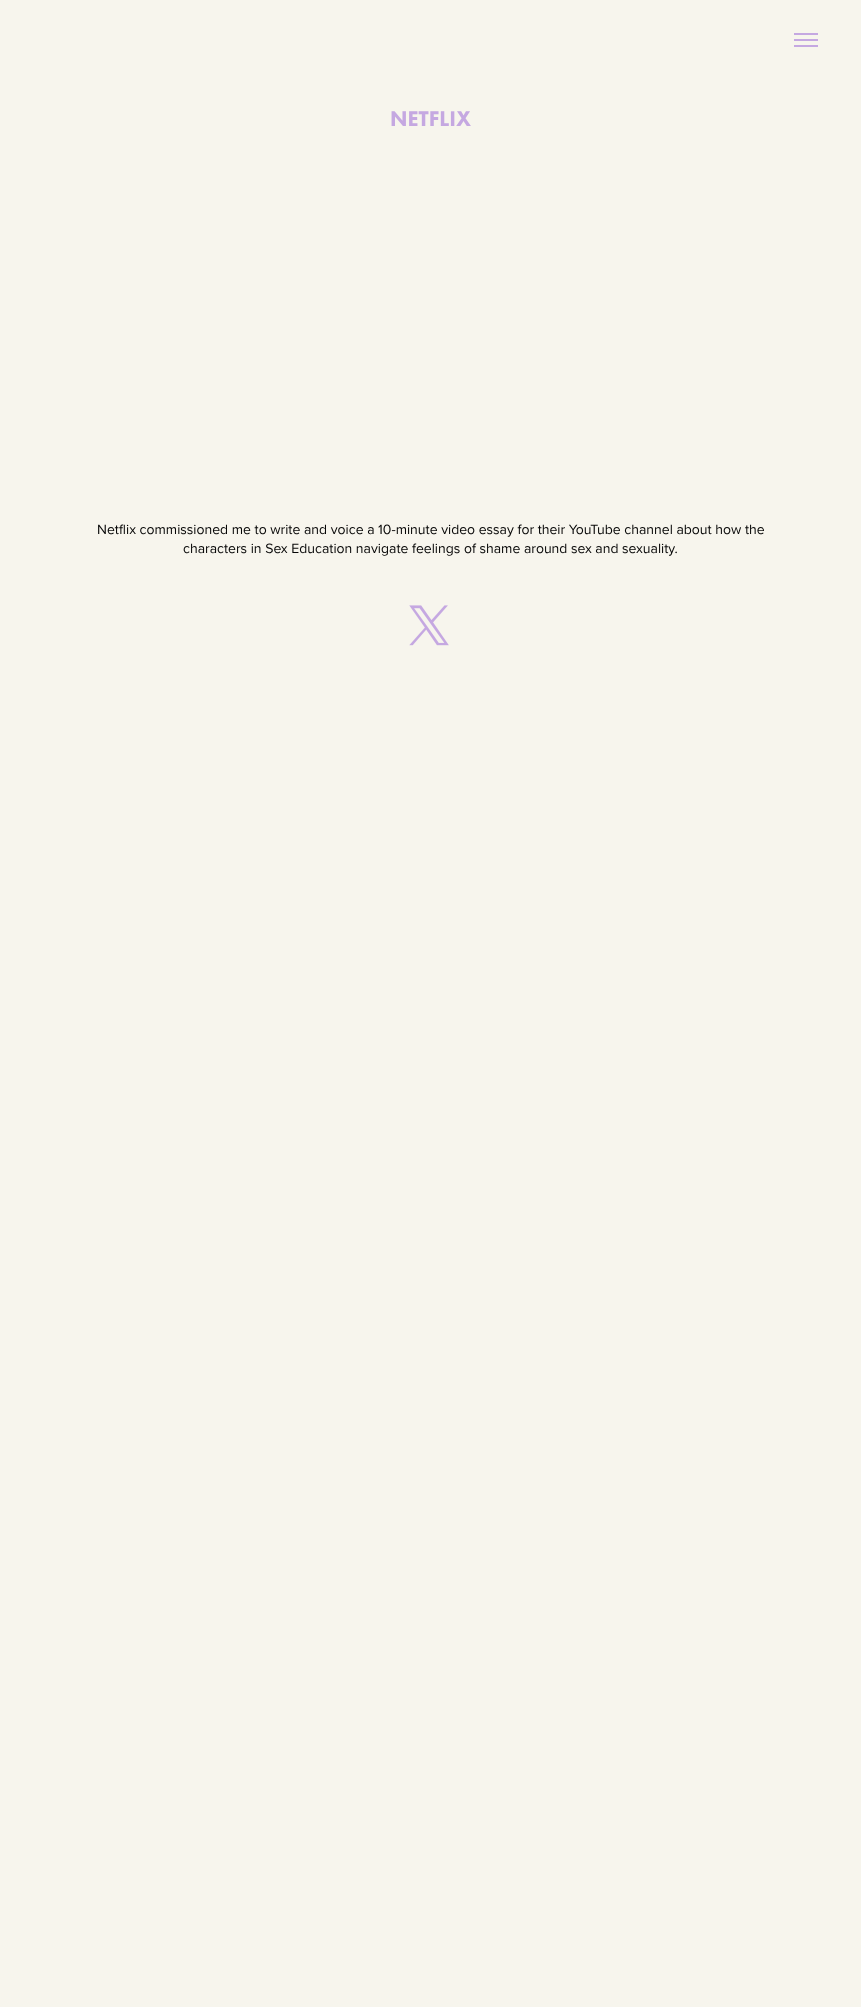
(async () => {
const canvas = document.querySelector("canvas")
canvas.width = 861
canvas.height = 2007
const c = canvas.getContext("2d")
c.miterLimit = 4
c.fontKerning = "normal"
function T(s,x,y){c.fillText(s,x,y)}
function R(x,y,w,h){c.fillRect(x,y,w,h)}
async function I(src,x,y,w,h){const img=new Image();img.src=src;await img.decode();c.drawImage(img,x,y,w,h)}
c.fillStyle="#f7f5ed"
R(0,0,861,2007)
c.fillStyle="#c5a8e1"
R(794,33,24,2)
R(794,39,24,2)
R(794,45,24,2)
c.font="900 22px Futura PT"
T("NETFLIX",390,126)
c.font="14px Proxima Nova"
c.fillStyle="#060606"
T("Netflix commissioned me to write and voice a 10-minute video essay for their YouTube channel about how the",97,534)
T("characters in Sex Education navigate feelings of shame around sex and sexuality.",183,553)
await I("1.png",409,605,40,41)
})()
